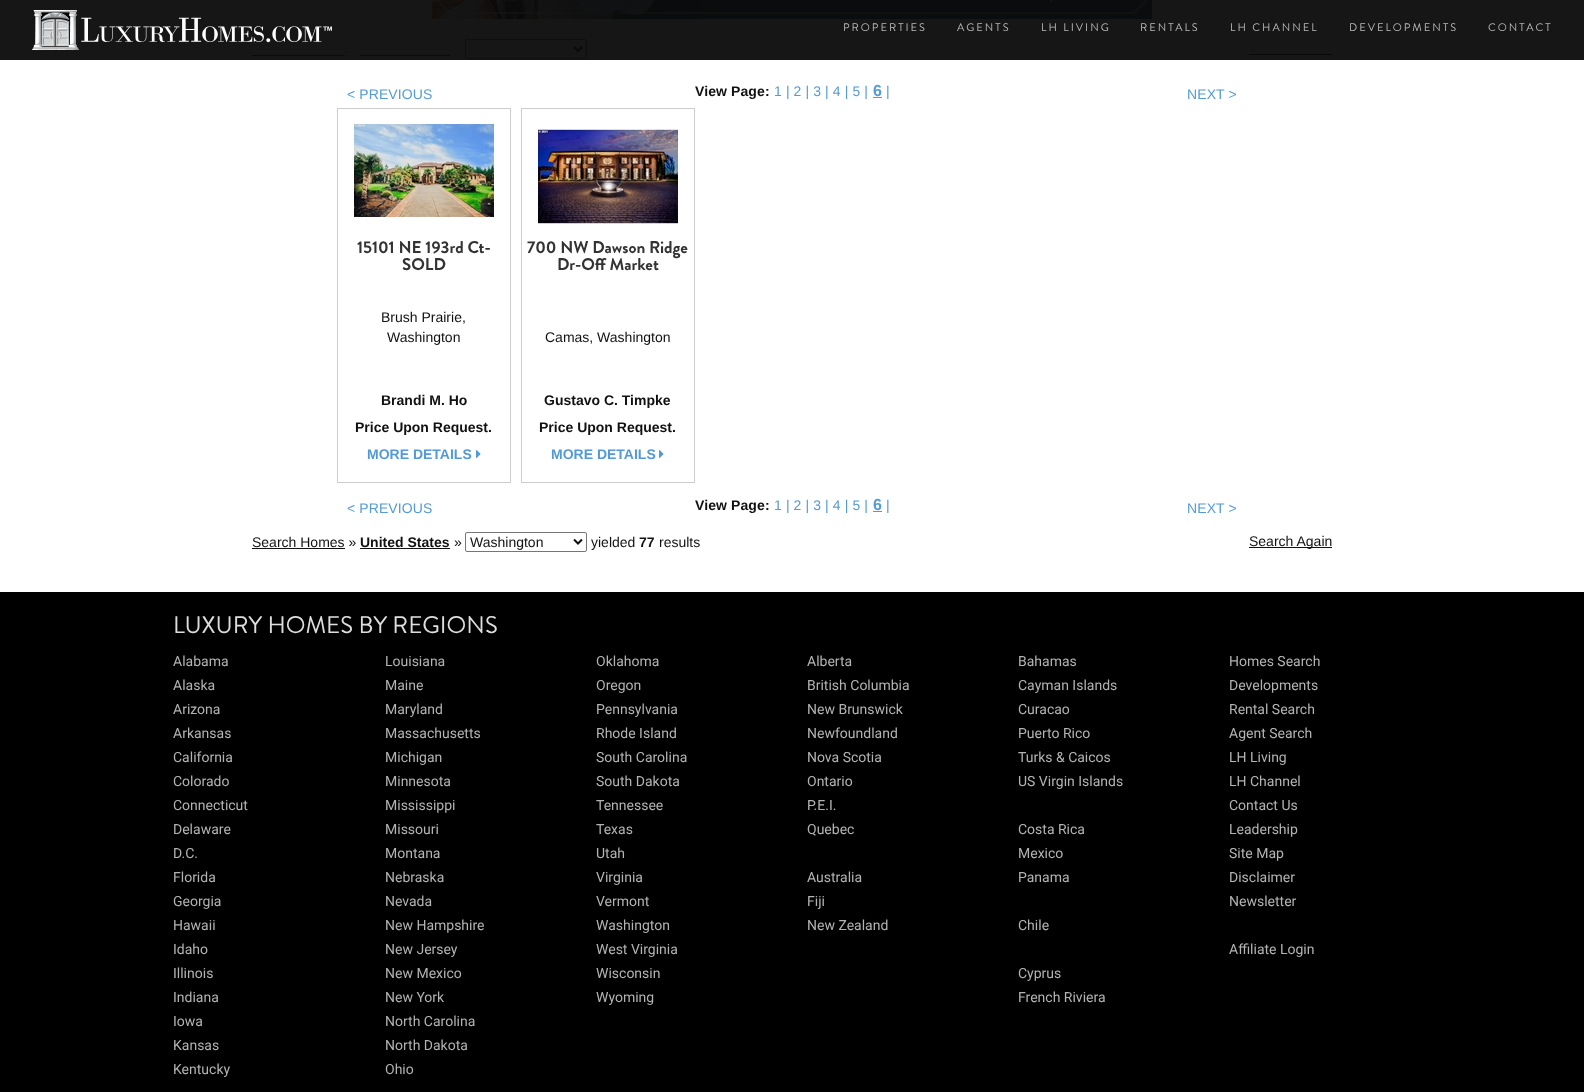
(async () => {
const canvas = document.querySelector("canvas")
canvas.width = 1584
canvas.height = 1092
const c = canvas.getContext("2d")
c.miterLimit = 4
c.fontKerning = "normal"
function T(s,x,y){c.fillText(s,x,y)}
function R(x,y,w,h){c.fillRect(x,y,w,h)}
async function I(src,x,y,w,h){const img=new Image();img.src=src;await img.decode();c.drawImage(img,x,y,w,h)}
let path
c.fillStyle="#fff"
R(0,0,1584,1092)
c.fillStyle="#161616"
R(0,0,1584,60)
await I("1.png",32,10,300,40)
c.letterSpacing="2px"
c.font="11px Brandon Grotesque"
c.fillStyle="#b9b9b9"
T("PROPERTIES",843,31)
T("AGENTS",957,31)
T("LH LIVING",1041,31)
T("RENTALS",1140,31)
T("LH CHANNEL",1230,31)
T("DEVELOPMENTS",1349,31)
T("CONTACT",1488,31)
await I("2.png",432,0,720,19)
c.fillStyle="#0a0a0a"
R(252,55,93,1)
R(360,55,90,1)
c.beginPath()
c.roundRect(465.5,39.5,121,19,1.5)
c.strokeStyle="#0f0f0f"
c.stroke()
path = new Path2D("M574 47l4 4l4-4")
c.strokeStyle="#0a0a0a"
c.lineWidth=2
c.stroke(path)
R(1249,54,83,1)
c.letterSpacing="0.1px"
c.font="14px Liberation Sans"
c.fillStyle="#539ad7"
T("< PREVIOUS",347,99)
c.font="bold 14px Liberation Sans"
c.fillStyle="#111"
T("View Page:",695,96)
c.font="14px Liberation Sans"
c.fillStyle="#539ad7"
T("1 | 2 | 3 | 4 | 5 |",774,96)
c.font="bold 16px Liberation Sans"
T("6",873,96)
R(873,97,9,1)
c.font="14px Liberation Sans"
T("|",886,96)
T("NEXT >",1187,99)
c.strokeStyle="#ccc"
c.lineWidth=1
c.strokeRect(337.5,108.5,173,374)
await I("3.png",354,124,140,93)
c.letterSpacing="0px"
c.font="bold 17px Brandon Grotesque"
c.fillStyle="#333"
T("15101 NE 193rd Ct-",357,253)
T("SOLD",402,270)
c.font="14px Liberation Sans"
c.fillStyle="#111"
T("Brush Prairie,",381,322)
T("Washington",387,342)
c.font="bold 14px Liberation Sans"
T("Brandi M. Ho",381,405)
T("Price Upon Request.",355,432)
c.fillStyle="#539ad7"
T("MORE DETAILS",367,459)
await I("4.png",476,450,5,8)
c.strokeRect(521.5,108.5,173,374)
await I("5.png",538,129,140,95)
c.font="bold 17px Brandon Grotesque"
c.fillStyle="#333"
T("700 NW Dawson Ridge",527,253)
T("Dr-Off Market",557,270)
c.font="14px Liberation Sans"
c.fillStyle="#111"
T("Camas, Washington",545,342)
c.font="bold 14px Liberation Sans"
T("Gustavo C. Timpke",544,405)
T("Price Upon Request.",539,432)
c.fillStyle="#539ad7"
T("MORE DETAILS",551,459)
await I("4.png",659,450,5,8)
c.letterSpacing="0.1px"
c.font="14px Liberation Sans"
T("< PREVIOUS",347,513)
c.font="bold 14px Liberation Sans"
c.fillStyle="#111"
T("View Page:",695,510)
c.font="14px Liberation Sans"
c.fillStyle="#539ad7"
T("1 | 2 | 3 | 4 | 5 |",774,510)
c.font="bold 16px Liberation Sans"
T("6",873,510)
R(873,511,9,1)
c.font="14px Liberation Sans"
T("|",886,510)
T("NEXT >",1187,513)
c.letterSpacing="0px"
c.fillStyle="#111"
T("Search Homes »",252,547)
R(252,548,93,1)
c.font="bold 14px Liberation Sans"
T("United States",360,547)
R(360,548,90,1)
c.font="14px Liberation Sans"
T("»",454,547)
c.beginPath()
c.roundRect(465.5,532.5,121,19,1.5)
c.strokeStyle="#767676"
c.stroke()
path = new Path2D("M574 539.5l4 4l4-4")
c.strokeStyle="#111"
c.lineWidth=2
c.stroke(path)
T("Washington",470,547)
T("yielded",591,547)
c.font="bold 14px Liberation Sans"
T("77",639,547)
c.font="14px Liberation Sans"
T("results",659,547)
R(1249,547,83,1)
T("Search Again",1249,546)
c.fillStyle="#000"
R(0,592,1584,500)
c.font="24px Brandon Grotesque"
c.fillStyle="#ddd"
T("LUXURY HOMES BY REGIONS",173,633)
c.font="14px Roboto"
c.fillStyle="#b3b3b3"
T("Alabama",173,666)
T("Alaska",173,690)
T("Arizona",173,714)
T("Arkansas",173,738)
T("California",173,762)
T("Colorado",173,786)
T("Connecticut",173,810)
T("Delaware",173,834)
T("D.C.",173,858)
T("Florida",173,882)
T("Georgia",173,906)
T("Hawaii",173,930)
T("Idaho",173,954)
T("Illinois",173,978)
T("Indiana",173,1002)
T("Iowa",173,1026)
T("Kansas",173,1050)
T("Kentucky",173,1074)
T("Louisiana",385,666)
T("Maine",385,690)
T("Maryland",385,714)
T("Massachusetts",385,738)
T("Michigan",385,762)
T("Minnesota",385,786)
T("Mississippi",385,810)
T("Missouri",385,834)
T("Montana",385,858)
T("Nebraska",385,882)
T("Nevada",385,906)
T("New Hampshire",385,930)
T("New Jersey",385,954)
T("New Mexico",385,978)
T("New York",385,1002)
T("North Carolina",385,1026)
T("North Dakota",385,1050)
T("Ohio",385,1074)
T("Oklahoma",596,666)
T("Oregon",596,690)
T("Pennsylvania",596,714)
T("Rhode Island",596,738)
T("South Carolina",596,762)
T("South Dakota",596,786)
T("Tennessee",596,810)
T("Texas",596,834)
T("Utah",596,858)
T("Virginia",596,882)
T("Vermont",596,906)
T("Washington",596,930)
T("West Virginia",596,954)
T("Wisconsin",596,978)
T("Wyoming",596,1002)
T("Alberta",807,666)
T("British Columbia",807,690)
T("New Brunswick",807,714)
T("Newfoundland",807,738)
T("Nova Scotia",807,762)
T("Ontario",807,786)
T("P.E.I.",807,810)
T("Quebec",807,834)
T("Australia",807,882)
T("Fiji",807,906)
T("New Zealand",807,930)
T("Bahamas",1018,666)
T("Cayman Islands",1018,690)
T("Curacao",1018,714)
T("Puerto Rico",1018,738)
T("Turks & Caicos",1018,762)
T("US Virgin Islands",1018,786)
T("Costa Rica",1018,834)
T("Mexico",1018,858)
T("Panama",1018,882)
T("Chile",1018,930)
T("Cyprus",1018,978)
T("French Riviera",1018,1002)
T("Homes Search",1229,666)
T("Developments",1229,690)
T("Rental Search",1229,714)
T("Agent Search",1229,738)
T("LH Living",1229,762)
T("LH Channel",1229,786)
T("Contact Us",1229,810)
T("Leadership",1229,834)
T("Site Map",1229,858)
T("Disclaimer",1229,882)
T("Newsletter",1229,906)
T("Affiliate Login",1229,954)
})()
